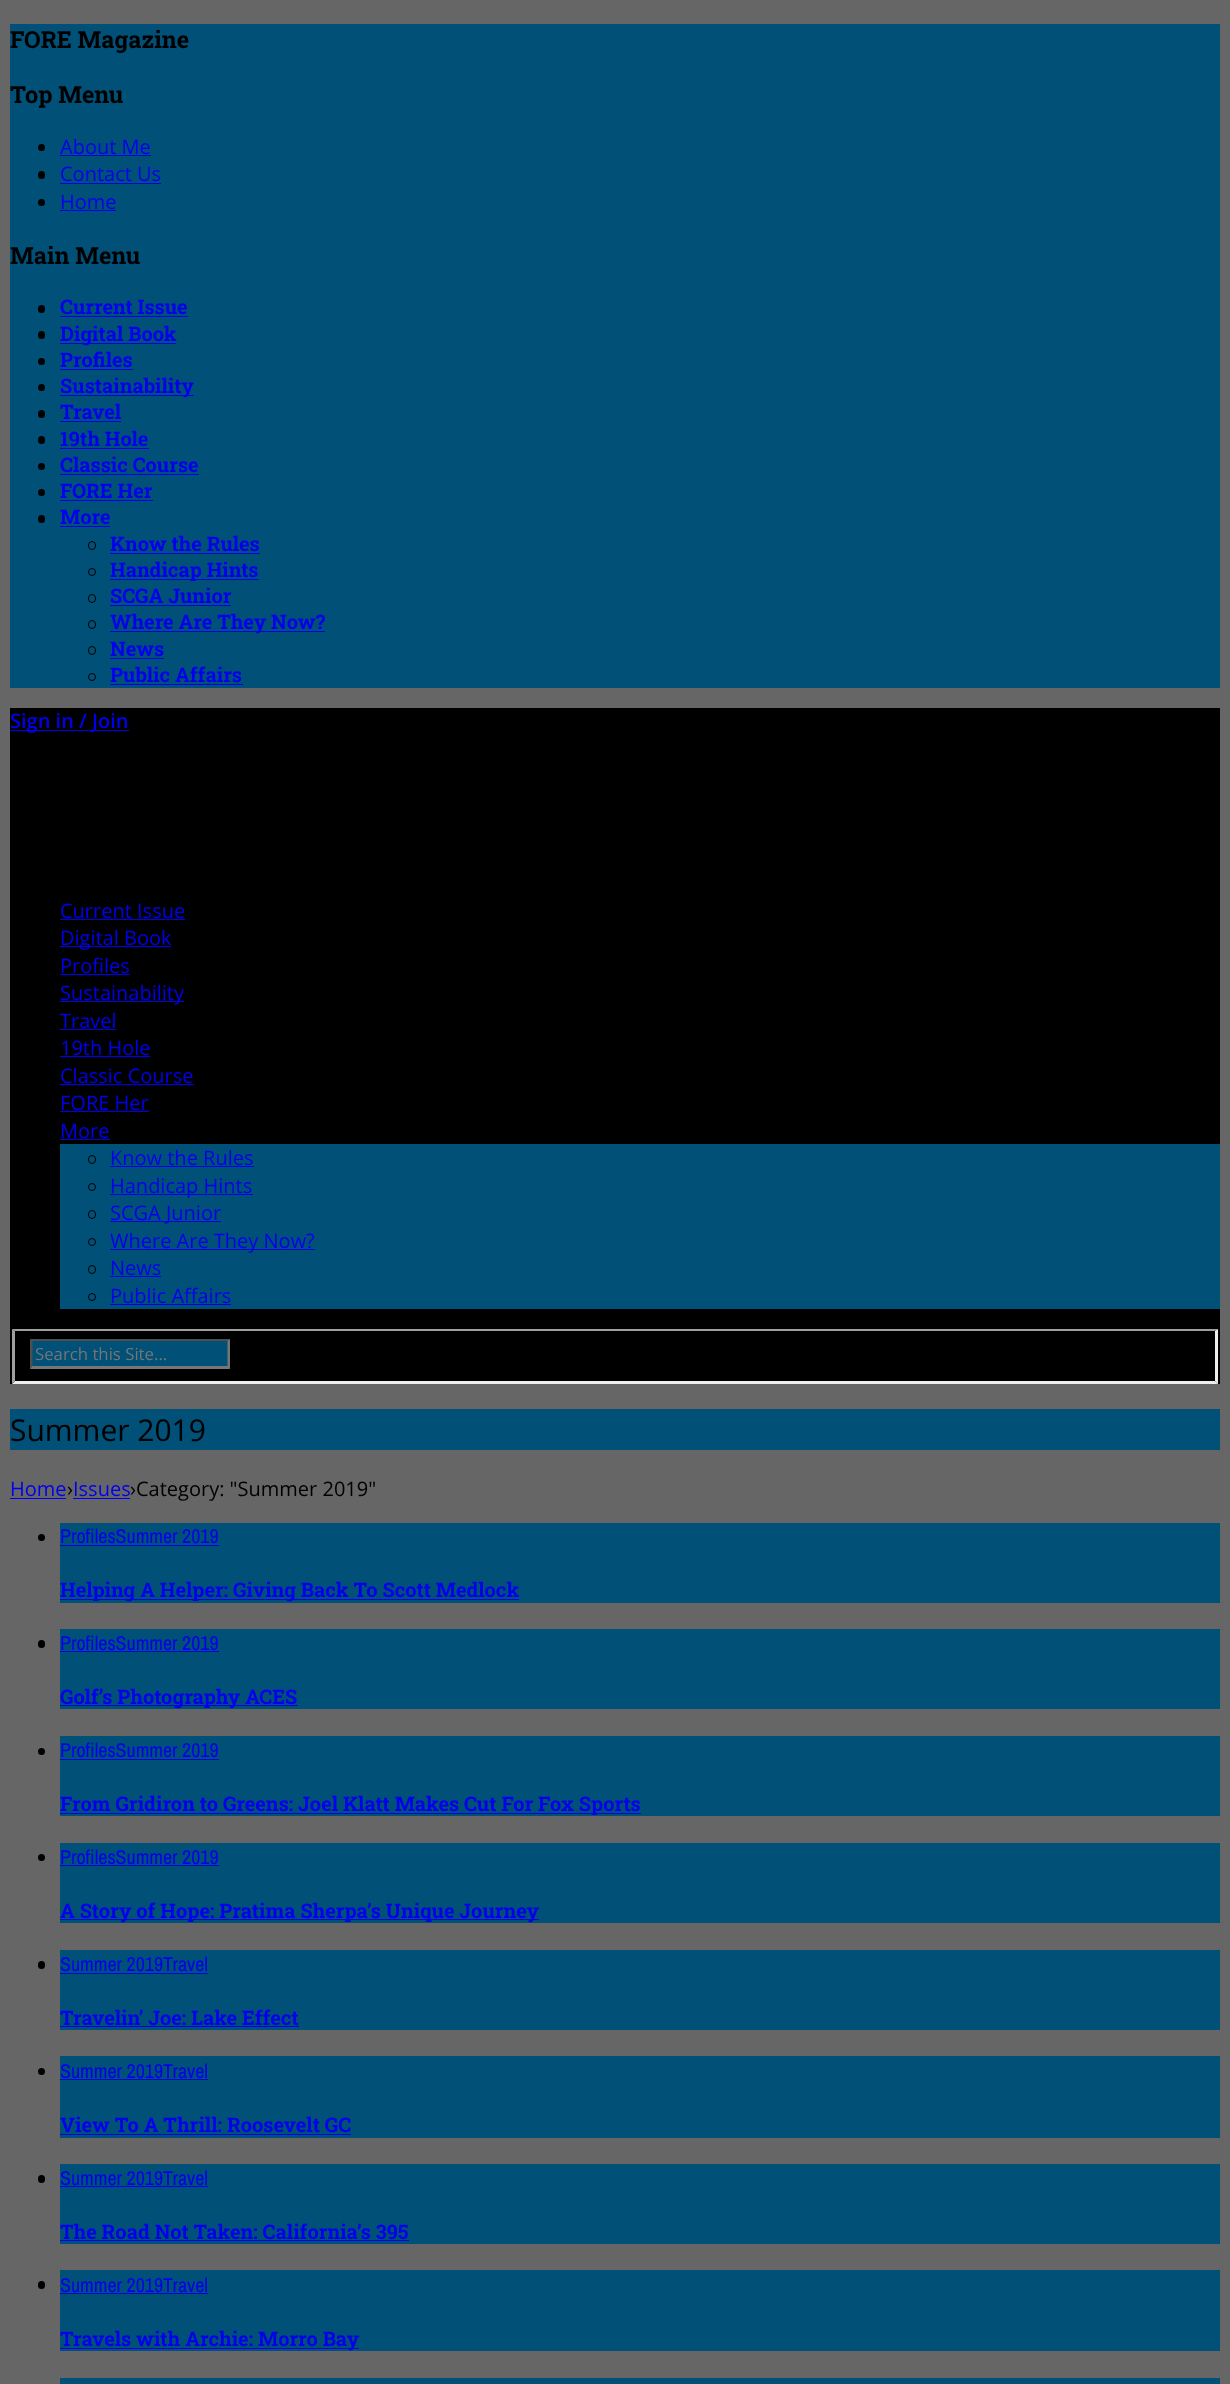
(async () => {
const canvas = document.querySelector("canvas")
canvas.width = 1230
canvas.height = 2384
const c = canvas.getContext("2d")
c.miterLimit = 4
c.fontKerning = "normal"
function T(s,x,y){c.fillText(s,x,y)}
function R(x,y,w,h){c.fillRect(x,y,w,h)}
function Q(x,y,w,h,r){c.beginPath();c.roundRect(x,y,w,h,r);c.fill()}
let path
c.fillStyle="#666"
R(0,0,1230,2384)
c.fillStyle="#005077"
R(10,24,1210,664)
c.font="bold 23.5px Roboto Slab"
c.fillStyle="#000"
T("FORE Magazine",10,48)
T("Top Menu",10,103)
c.beginPath()
c.arc(41.5,147.5,3.5,0,7)
c.fill()
c.font="20px Open Sans"
c.fillStyle="#00e"
T("About Me",60,154)
R(60,155,91,1)
c.fillStyle="#000"
Q(38,171,7,8,3.5)
c.fillStyle="#00e"
T("Contact Us",60,181)
R(60,183,101,1)
c.fillStyle="#000"
c.beginPath()
c.arc(41.5,202.5,3.5,0,7)
c.fill()
c.fillStyle="#00e"
T("Home",60,209)
R(60,210,56,1)
c.font="bold 23.5px Roboto Slab"
c.fillStyle="#000"
T("Main Menu",10,264)
Q(38,305,7,8,3.5)
c.font="bold 20px Roboto Slab"
c.fillStyle="#00e"
T("Current Issue",60,314)
R(60,316,128,1)
c.fillStyle="#000"
Q(38,331,7,8,3.5)
c.fillStyle="#00e"
R(60,343,116,1)
T("Digital Book",60,341)
c.fillStyle="#000"
c.beginPath()
c.arc(41.5,361.5,3.5,0,7)
c.fill()
c.fillStyle="#00e"
T("Profiles",60,367)
R(60,369,73,1)
c.fillStyle="#000"
c.beginPath()
c.arc(41.5,387.5,3.5,0,7)
c.fill()
c.fillStyle="#00e"
R(60,395,134,1)
T("Sustainability",60,393)
c.fillStyle="#000"
Q(38,410,7,8,3.5)
c.fillStyle="#00e"
T("Travel",60,419)
R(60,421,61,1)
c.fillStyle="#000"
Q(38,436,7,8,3.5)
c.fillStyle="#00e"
T("19th Hole",60,446)
R(60,448,89,1)
c.fillStyle="#000"
c.beginPath()
c.arc(41.5,466.5,3.5,0,7)
c.fill()
c.fillStyle="#00e"
T("Classic Course",60,472)
R(60,474,139,1)
c.fillStyle="#000"
c.beginPath()
c.arc(41.5,492.5,3.5,0,7)
c.fill()
c.fillStyle="#00e"
T("FORE Her",60,498)
R(60,500,93,1)
c.fillStyle="#000"
Q(38,515,7,8,3.5)
c.fillStyle="#00e"
T("More",60,524)
R(60,526,50,1)
c.beginPath()
c.roundRect(88.5,541.5,7,8,3.5)
c.strokeStyle="#000"
c.stroke()
T("Know the Rules",110,551)
R(110,553,150,1)
c.beginPath()
c.arc(92,572,3.5,0,7)
c.stroke()
R(110,579,149,1)
T("Handicap Hints",110,577)
c.beginPath()
c.roundRect(88.5,594.5,7,8,3.5)
c.stroke()
T("SCGA Junior",110,603)
R(110,605,121,1)
c.beginPath()
c.roundRect(88.5,620.5,7,8,3.5)
c.stroke()
R(110,631,215,1)
T("Where Are They Now?",110,629)
c.beginPath()
c.roundRect(88.5,646.5,7,8,3.5)
c.stroke()
T("News",110,656)
R(110,658,54,1)
c.beginPath()
c.arc(92,677,3.5,0,7)
c.stroke()
T("Public Affairs",110,682)
R(110,684,133,1)
c.fillStyle="#000"
R(10,708,1210,676)
c.fillStyle="#00e"
R(10,730,119,1)
c.font="600 20px Open Sans"
T("Sign in / Join",10,728)
c.font="20px Open Sans"
T("Current Issue",60,918)
R(60,919,125,1)
R(60,946,111,1)
T("Digital Book",60,945)
T("Profiles",60,973)
R(60,974,70,1)
R(60,1001,124,1)
T("Sustainability",60,1000)
T("Travel",60,1028)
R(60,1029,56,1)
T("19th Hole",60,1055)
R(60,1056,90,1)
T("Classic Course",60,1083)
R(60,1084,134,1)
T("FORE Her",60,1110)
R(60,1111,89,1)
T("More",60,1138)
R(60,1139,50,1)
c.fillStyle="#005077"
R(60,1144,1160,165)
c.beginPath()
c.roundRect(88.5,1155.5,7,8,3.5)
c.stroke()
c.fillStyle="#00e"
T("Know the Rules",110,1165)
R(110,1166,144,1)
c.beginPath()
c.arc(92,1187,3.5,0,7)
c.stroke()
R(110,1194,143,1)
T("Handicap Hints",110,1193)
c.beginPath()
c.roundRect(88.5,1210.5,7,8,3.5)
c.stroke()
R(110,1221,111,1)
T("SCGA Junior",110,1220)
c.beginPath()
c.arc(92,1242,3.5,0,7)
c.stroke()
R(110,1249,205,1)
T("Where Are They Now?",110,1248)
c.beginPath()
c.roundRect(88.5,1265.5,7,8,3.5)
c.stroke()
T("News",110,1275)
R(110,1276,51,1)
c.beginPath()
c.arc(92,1297,3.5,0,7)
c.stroke()
T("Public Affairs",110,1303)
R(110,1304,121,1)
c.fillStyle="#9f9f9f"
path = new Path2D("M12 1329h1206l-3 2h-1200z")
c.fill(path)
c.fillStyle="#efefef"
path = new Path2D("M1218 1329v55l-3-3v-50z")
c.fill(path)
path = new Path2D("M1218 1384h-1206l3-3h1200z")
c.fill(path)
c.fillStyle="#9f9f9f"
path = new Path2D("M12 1384v-55l3 2v50z")
c.fill(path)
c.fillStyle="#005077"
R(30,1339,200,30)
c.fillStyle="#4f4f4f"
path = new Path2D("M30 1339h200l-2 2h-196z")
c.fill(path)
c.fillStyle="#767676"
path = new Path2D("M230 1339v30l-2.5-3v-25z")
c.fill(path)
path = new Path2D("M230 1369h-200l2-3h196z")
c.fill(path)
c.fillStyle="#4f4f4f"
path = new Path2D("M30 1369v-30l2.5 2v25z")
c.fill(path)
c.font="16.75px Open Sans"
c.fillStyle="#757575"
T("Search this Site...",35,1360)
c.fillStyle="#005077"
R(10,1409,1210,41)
c.font="30px Open Sans"
c.fillStyle="#000"
T("Summer 2019",10,1441)
c.font="20px Open Sans"
c.fillStyle="#00e"
T("Home",10,1496)
R(10,1498,56,1)
c.fillStyle="#000"
T("›",67,1496)
c.fillStyle="#00e"
T("Issues",73,1496)
R(73,1498,57,1)
c.fillStyle="#000"
T("›Category: \"Summer 2019\"",130,1496)
c.beginPath()
c.arc(41.5,1537.5,3.5,0,7)
c.fill()
c.fillStyle="#005077"
R(60,1523,1160,80)
c.font="20px Archivo Narrow"
c.fillStyle="#00e"
T("ProfilesSummer 2019",60,1543)
R(60,1545,159,1)
R(60,1599,459,1)
c.font="bold 20px Roboto Slab"
T("Helping A Helper: Giving Back To Scott Medlock",60,1597)
c.fillStyle="#000"
Q(38,1640,7,8,3.5)
c.fillStyle="#005077"
R(60,1629,1160,80)
c.font="20px Archivo Narrow"
c.fillStyle="#00e"
T("ProfilesSummer 2019",60,1650)
R(60,1651,159,1)
R(60,1705,238,1)
c.font="bold 20px Roboto Slab"
T("Golf’s Photography ACES",60,1704)
c.fillStyle="#000"
c.beginPath()
c.arc(41.5,1751.5,3.5,0,7)
c.fill()
c.fillStyle="#005077"
R(60,1736,1160,80)
c.font="20px Archivo Narrow"
c.fillStyle="#00e"
T("ProfilesSummer 2019",60,1757)
R(60,1759,159,1)
R(60,1813,581,1)
c.font="bold 20px Roboto Slab"
T("From Gridiron to Greens: Joel Klatt Makes Cut For Fox Sports",60,1811)
c.fillStyle="#000"
c.beginPath()
c.arc(41.5,1857.5,3.5,0,7)
c.fill()
c.fillStyle="#005077"
R(60,1843,1160,80)
c.font="20px Archivo Narrow"
c.fillStyle="#00e"
T("ProfilesSummer 2019",60,1864)
R(60,1865,159,1)
R(60,1919,479,1)
c.font="bold 20px Roboto Slab"
T("A Story of Hope: Pratima Sherpa’s Unique Journey",60,1918)
c.fillStyle="#000"
Q(38,1961,7,8,3.5)
c.fillStyle="#005077"
R(60,1950,1160,80)
c.font="20px Archivo Narrow"
c.fillStyle="#00e"
T("Summer 2019Travel",60,1971)
R(60,1973,148,1)
c.font="bold 20px Roboto Slab"
T("Travelin’ Joe: Lake Effect",60,2025)
R(60,2026,239,1)
c.fillStyle="#000"
c.beginPath()
c.arc(41.5,2071.5,3.5,0,7)
c.fill()
c.fillStyle="#005077"
R(60,2056,1160,82)
c.font="20px Archivo Narrow"
c.fillStyle="#00e"
T("Summer 2019Travel",60,2078)
R(60,2079,148,1)
c.font="bold 20px Roboto Slab"
T("View To A Thrill: Roosevelt GC",60,2132)
R(60,2134,291,1)
c.fillStyle="#000"
Q(38,2175,7,8,3.5)
c.fillStyle="#005077"
R(60,2164,1160,80)
c.font="20px Archivo Narrow"
c.fillStyle="#00e"
T("Summer 2019Travel",60,2185)
R(60,2186,148,1)
c.font="bold 20px Roboto Slab"
T("The Road Not Taken: California’s 395",60,2239)
R(60,2240,349,1)
c.fillStyle="#000"
Q(38,2281,7,8,3.5)
c.fillStyle="#005077"
R(60,2270,1160,81)
c.font="20px Archivo Narrow"
c.fillStyle="#00e"
T("Summer 2019Travel",60,2292)
R(60,2293,148,1)
R(60,2348,299,1)
c.font="bold 20px Roboto Slab"
T("Travels with Archie: Morro Bay",60,2346)
c.fillStyle="#005077"
R(60,2378,1160,6)
})()
